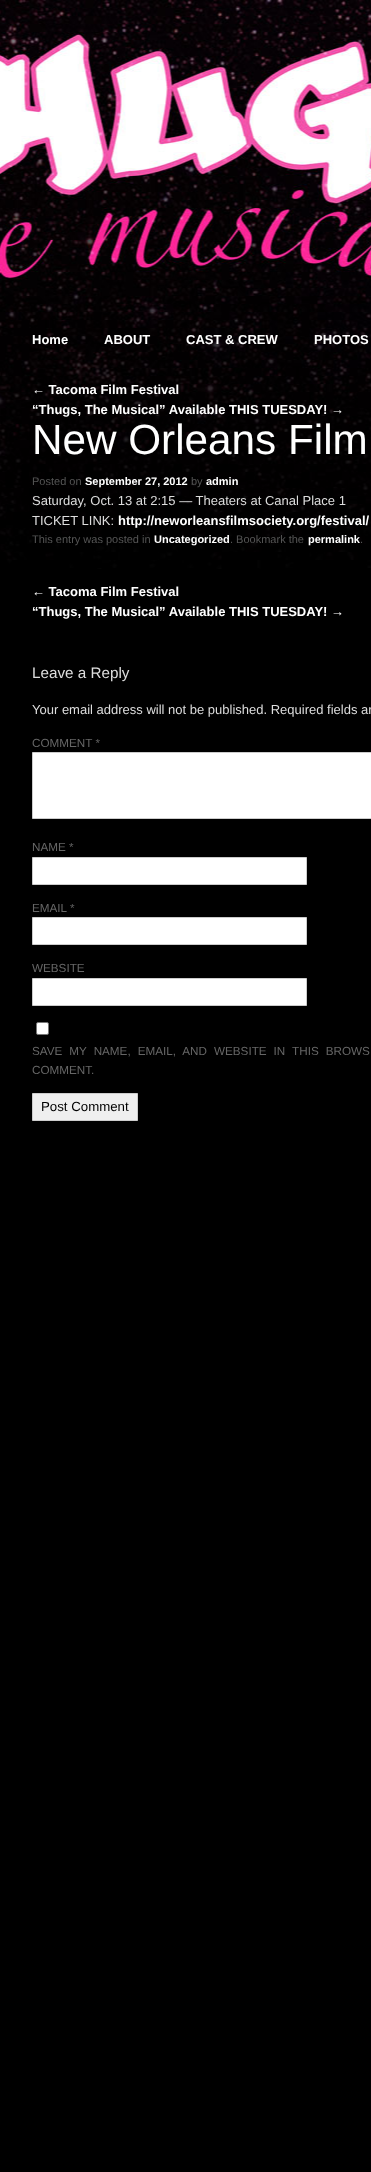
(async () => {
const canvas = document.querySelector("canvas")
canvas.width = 371
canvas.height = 2172
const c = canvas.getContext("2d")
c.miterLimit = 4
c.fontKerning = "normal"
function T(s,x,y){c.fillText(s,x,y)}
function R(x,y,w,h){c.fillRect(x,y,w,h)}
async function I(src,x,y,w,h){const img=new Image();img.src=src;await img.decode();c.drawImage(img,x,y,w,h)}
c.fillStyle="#000"
R(0,0,371,2172)
await I("1.png",0,0,371,569)
c.font="bold 13px Liberation Sans"
c.fillStyle="#fff"
T("Home",32,344)
T("ABOUT",104,344)
T("CAST & CREW",186,344)
T("PHOTOS",314,344)
T("← Tacoma Film Festival",32,394)
T("“Thugs, The Musical” Available THIS TUESDAY! →",32,414)
c.font="42.25px Liberation Sans"
T("New Orleans Film",32,454)
c.font="11px Liberation Sans"
c.fillStyle="#555"
T("Posted on",32,485)
c.font="bold 11px Liberation Sans"
c.fillStyle="#fff"
T("September 27, 2012",85,485)
c.font="11px Liberation Sans"
c.fillStyle="#555"
T("by",191,485)
c.font="bold 11px Liberation Sans"
c.fillStyle="#fff"
T("admin",206,485)
c.font="13px Liberation Sans"
c.fillStyle="#ddd"
T("Saturday, Oct. 13 at 2:15 — Theaters at Canal Place 1",32,505)
T("TICKET LINK:",32,525)
c.font="bold 13px Liberation Sans"
c.fillStyle="#fff"
T("http://neworleansfilmsociety.org/festival/",118,525)
c.font="11px Liberation Sans"
c.fillStyle="#555"
T("This entry was posted in",32,543)
c.font="bold 11px Liberation Sans"
c.fillStyle="#fff"
T("Uncategorized",154,543)
c.font="11px Liberation Sans"
c.fillStyle="#555"
T(". Bookmark the",230,543)
c.font="bold 11px Liberation Sans"
c.fillStyle="#fff"
T("permalink",308,543)
c.font="11px Liberation Sans"
c.fillStyle="#555"
T(".",360,543)
c.font="bold 13px Liberation Sans"
c.fillStyle="#fff"
T("← Tacoma Film Festival",32,596)
T("“Thugs, The Musical” Available THIS TUESDAY! →",32,616)
c.font="15.25px Liberation Sans"
c.fillStyle="#ddd"
T("Leave a Reply",32,678)
c.font="13px Liberation Sans"
T("Your email address will not be published. Required fields ar",32,714)
c.font="11.7px Liberation Sans"
c.fillStyle="#666"
T("COMMENT *",32,747)
c.fillStyle="#fff"
c.beginPath()
c.rect(32.5,752.5,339,66)
c.fill()
c.strokeStyle="#ccc"
c.stroke()
c.fillStyle="#666"
T("NAME *",32,851)
c.fillStyle="#fff"
c.beginPath()
c.rect(32.5,857.5,274,27)
c.fill()
c.stroke()
c.fillStyle="#666"
T("EMAIL *",32,912)
c.fillStyle="#fff"
c.beginPath()
c.rect(32.5,917.5,274,27)
c.fill()
c.stroke()
c.fillStyle="#666"
T("WEBSITE",32,972)
c.fillStyle="#fff"
c.beginPath()
c.rect(32.5,978.5,274,27)
c.fill()
c.stroke()
c.beginPath()
c.roundRect(36.5,1022.5,12,12,1.5)
c.fill()
c.strokeStyle="#767676"
c.stroke()
c.wordSpacing="3.75px"
c.fillStyle="#666"
T("SAVE MY NAME, EMAIL, AND WEBSITE IN THIS BROWS",32,1055)
c.wordSpacing="0px"
T("COMMENT.",32,1074)
c.fillStyle="#efefef"
c.beginPath()
c.rect(32.5,1093.5,105,27)
c.fill()
c.strokeStyle="#ccc"
c.stroke()
c.font="13.25px Liberation Sans"
c.fillStyle="#000"
T("Post Comment",41,1111)
})()
